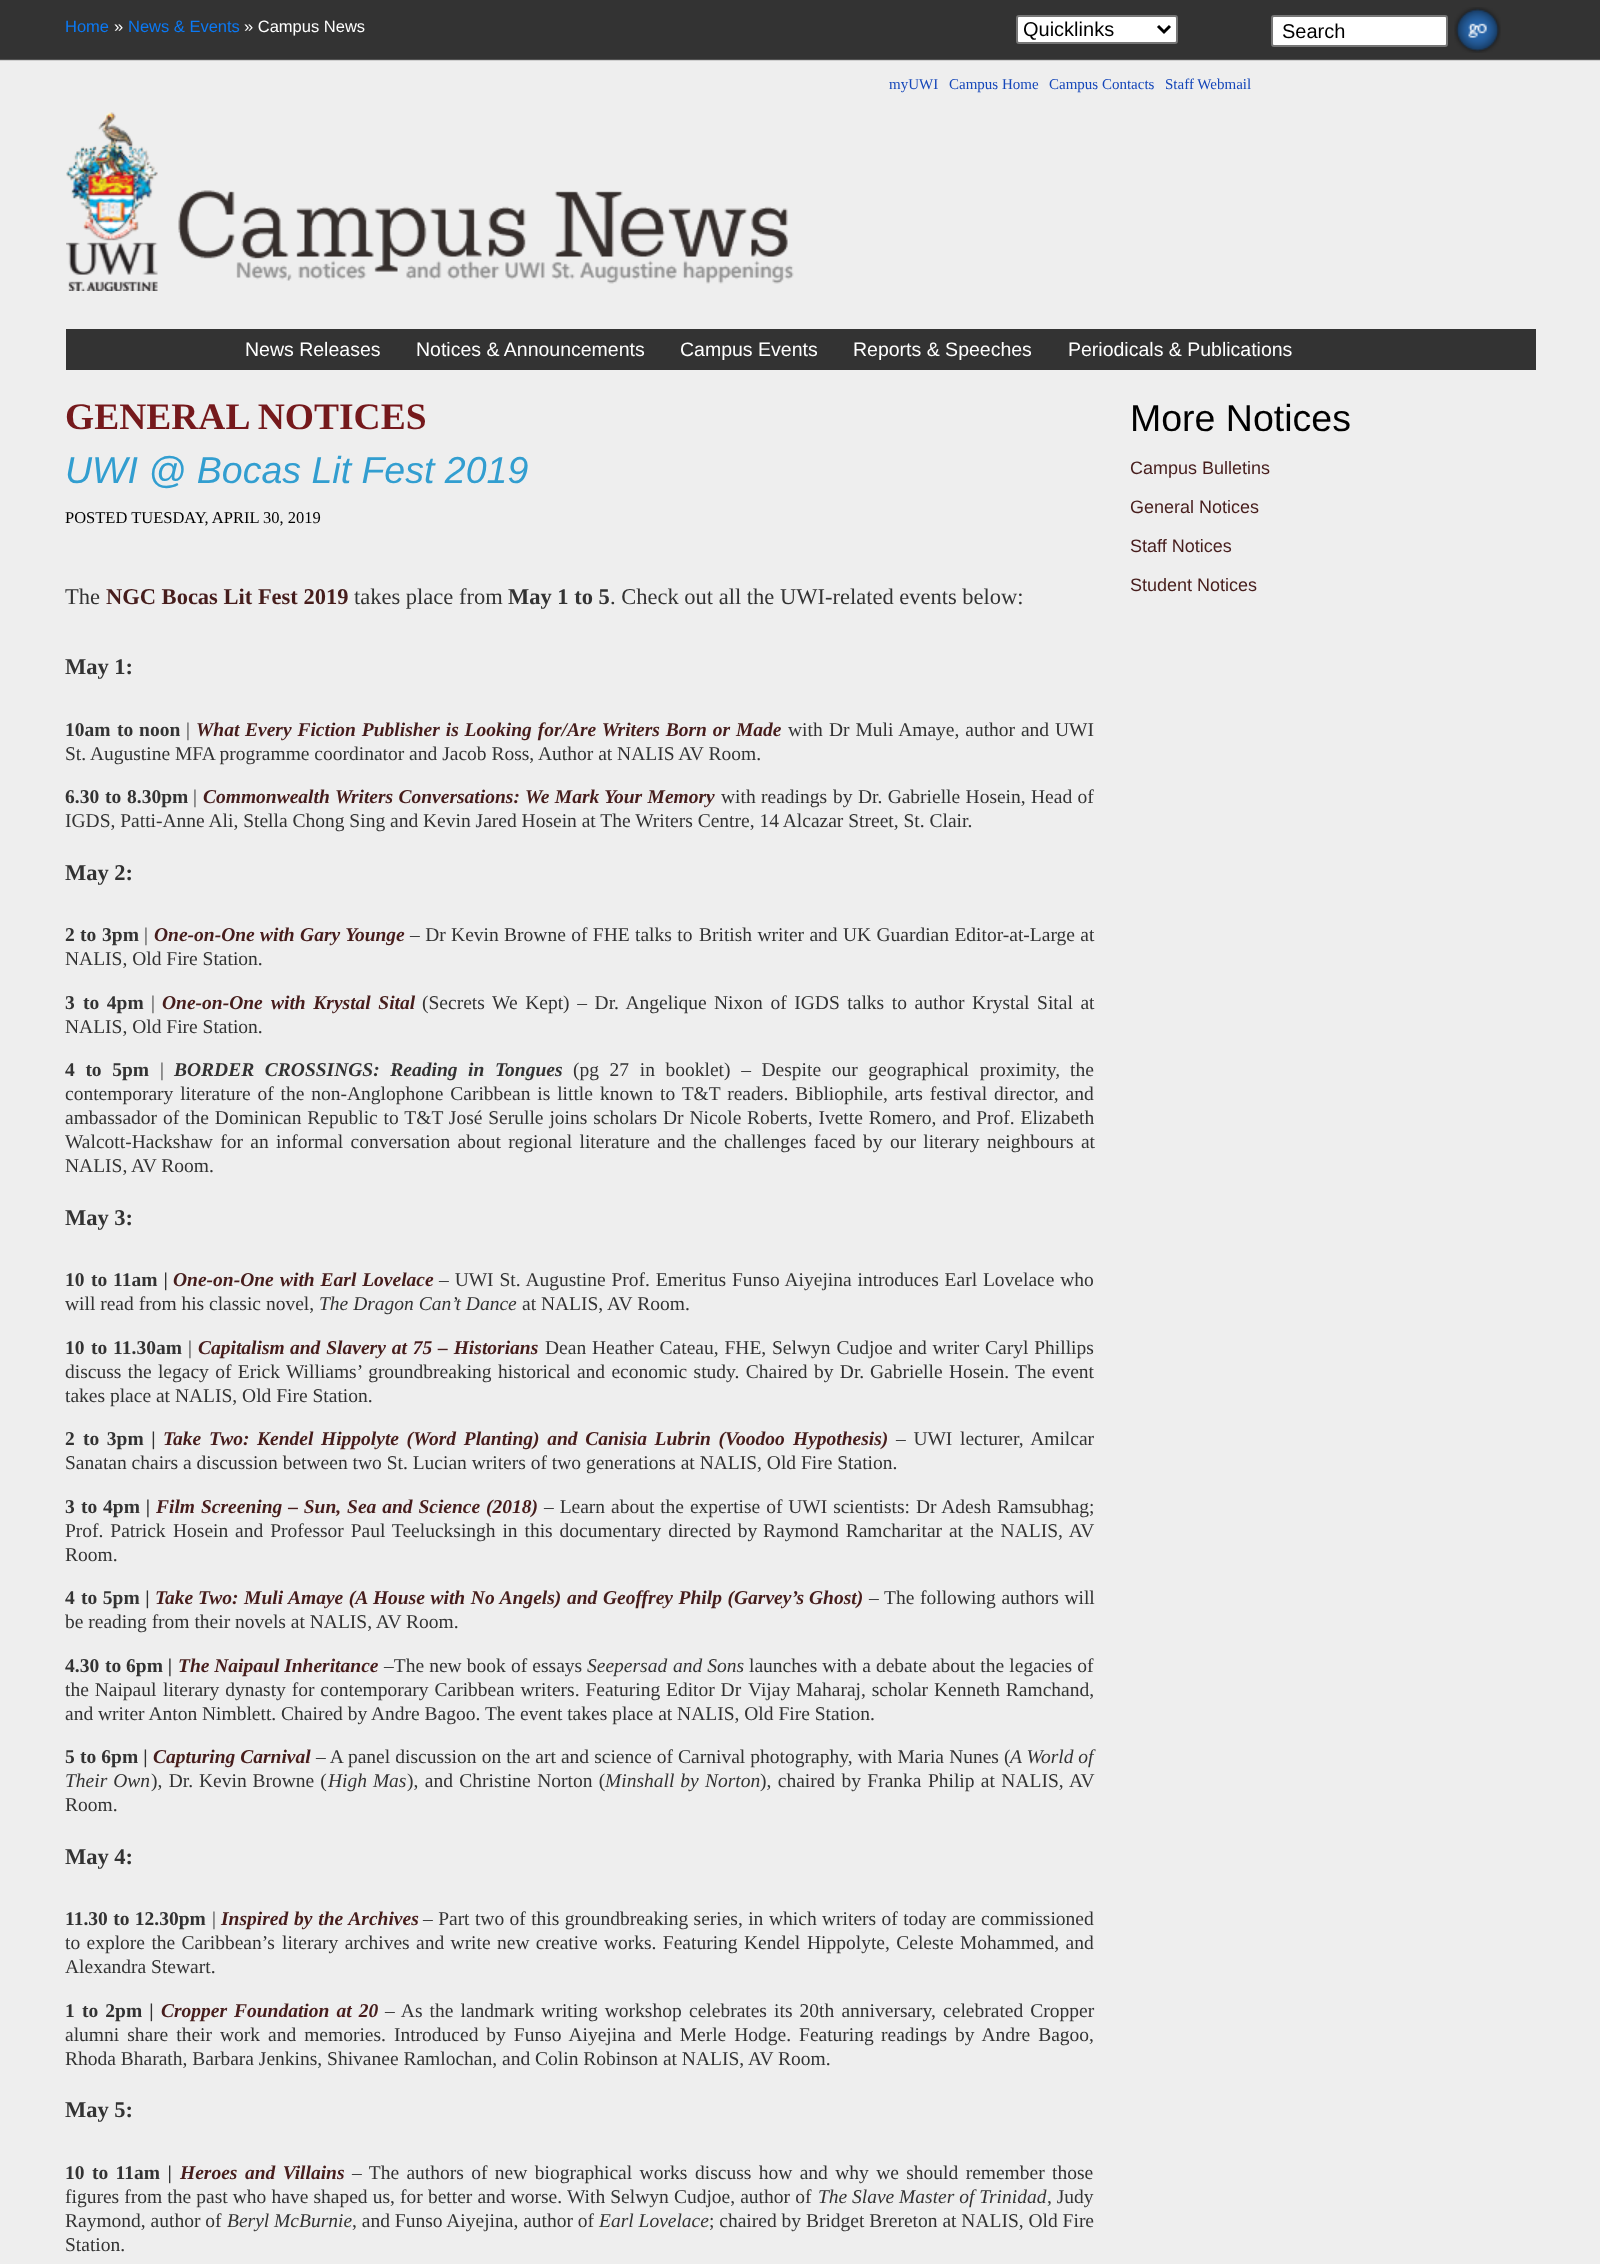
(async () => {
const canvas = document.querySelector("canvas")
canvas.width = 1600
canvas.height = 2264
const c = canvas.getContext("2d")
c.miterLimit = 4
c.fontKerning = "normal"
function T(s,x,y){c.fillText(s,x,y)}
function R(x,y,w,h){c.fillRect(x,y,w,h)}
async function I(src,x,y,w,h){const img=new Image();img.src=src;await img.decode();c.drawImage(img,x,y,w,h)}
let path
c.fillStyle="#eee"
R(0,0,1600,2264)
await I("1.png",0,0,1600,61)
c.font="16.5px Liberation Sans"
c.fillStyle="#0b79f4"
T("Home",65,32)
c.fillStyle="#fff"
T("»",114,32)
c.fillStyle="#0b79f4"
T("News & Events",128,32)
c.fillStyle="#fff"
T("» Campus News",244,32)
c.beginPath()
c.roundRect(1017,16,160,27,2)
c.fill()
c.strokeStyle="#767676"
c.lineWidth=2
c.stroke()
path = new Path2D("M1158 26l6 6l6-6")
c.strokeStyle="#000"
c.lineWidth=3
c.stroke(path)
c.font="20px Liberation Sans"
c.fillStyle="#000"
T("Quicklinks",1023,36)
c.fillStyle="#fff"
c.beginPath()
c.roundRect(1272,16,175,30,2)
c.fill()
c.strokeStyle="#767676"
c.lineWidth=2
c.stroke()
c.fillStyle="#000"
T("Search",1282,38)
await I("2.png",1454,7,47,46)
c.font="15px Liberation Serif"
c.fillStyle="#1446b9"
T("myUWI",889,89)
T("Campus Home",949,89)
T("Campus Contacts",1049,89)
T("Staff Webmail",1165,89)
await I("3.png",66,112,92,179)
await I("4.png",178,190,616,94)
c.fillStyle="#333"
R(66,329,1470,41)
c.font="19.5px Liberation Sans"
c.fillStyle="#fff"
T("News Releases",245,356)
T("Notices & Announcements",416,356)
T("Campus Events",680,356)
T("Reports & Speeches",853,356)
T("Periodicals & Publications",1068,356)
c.font="bold 37.5px Liberation Serif"
c.fillStyle="#75191c"
T("GENERAL NOTICES",65,429)
c.font="italic 37.5px Liberation Sans"
c.fillStyle="#329ed0"
T("UWI @ Bocas Lit Fest 2019",65,483)
c.font="16.5px Liberation Serif"
c.fillStyle="#000"
T("POSTED TUESDAY, APRIL 30, 2019",65,523)
c.font="22.5px Liberation Serif"
c.fillStyle="#333"
T("The",65,604)
c.font="bold 22.5px Liberation Serif"
c.fillStyle="#461d1c"
T("NGC Bocas Lit Fest 2019",106,604)
c.font="22.5px Liberation Serif"
c.fillStyle="#333"
T("takes place from",354,604)
c.font="bold 22.5px Liberation Serif"
T("May 1 to 5",508,604)
c.font="22.5px Liberation Serif"
T(". Check out all the UWI-related events below:",610,604)
c.font="bold 22.5px Liberation Serif"
T("May 1:",65,674)
c.font="bold 19.5px Liberation Serif"
T("10am",65,736)
c.wordSpacing="1px"
T("to noon",117,736)
c.wordSpacing="0px"
c.font="19.5px Liberation Serif"
T("|",186,736)
c.font="italic bold 19.5px Liberation Serif"
c.fillStyle="#461d1c"
T("What",196,736)
c.wordSpacing="1px"
T("Every Fiction Publisher is Looking for/Are Writers Born or Made",245,736)
c.wordSpacing="0px"
c.font="19.5px Liberation Serif"
c.fillStyle="#333"
T("with",788,736)
c.wordSpacing="1px"
T("Dr Muli Amaye, author and UWI",829,736)
c.wordSpacing="0px"
T("St. Augustine MFA programme coordinator and Jacob Ross, Author at NALIS AV Room.",65,760)
c.font="bold 19.5px Liberation Serif"
T("6.30",65,803)
c.wordSpacing="1px"
T("to 8.30pm",105,803)
c.wordSpacing="0px"
c.font="19.5px Liberation Serif"
T("|",193,803)
c.font="italic bold 19.5px Liberation Serif"
c.fillStyle="#461d1c"
T("Commonwealth",203,803)
c.wordSpacing="0.5px"
T("Writers Conversations: We Mark Your Memory",335,803)
c.font="19.5px Liberation Serif"
c.fillStyle="#333"
T("with readings",721,803)
T("by Dr. Gabrielle Hosein, Head of",833,803)
c.wordSpacing="0px"
T("IGDS, Patti-Anne Ali, Stella Chong Sing and Kevin Jared Hosein at The Writers Centre, 14 Alcazar Street, St. Clair.",65,827)
c.font="bold 22.5px Liberation Serif"
T("May 2:",65,880)
c.font="bold 19.5px Liberation Serif"
T("2",65,941)
c.wordSpacing="1px"
T("to 3pm",80,941)
c.wordSpacing="0px"
c.font="19.5px Liberation Serif"
T("|",144,941)
c.font="italic bold 19.5px Liberation Serif"
c.fillStyle="#461d1c"
T("One-on-One",154,941)
c.wordSpacing="0.5px"
T("with Gary Younge",260,941)
c.font="19.5px Liberation Serif"
c.fillStyle="#333"
T("– Dr Kevin Browne of FHE talks to",410,941)
T("British writer and UK Guardian Editor-at-Large at",699,941)
c.wordSpacing="0px"
T("NALIS, Old Fire Station.",65,965)
c.font="bold 19.5px Liberation Serif"
T("3",65,1009)
c.wordSpacing="2.75px"
T("to 4pm",83,1009)
c.wordSpacing="0px"
c.font="19.5px Liberation Serif"
T("|",151,1009)
c.font="italic bold 19.5px Liberation Serif"
c.fillStyle="#461d1c"
T("One-on-One",162,1009)
c.wordSpacing="2.75px"
T("with Krystal Sital",271,1009)
c.font="19.5px Liberation Serif"
c.fillStyle="#333"
T("(Secrets We Kept) – Dr. Angelique",422,1009)
T("Nixon of IGDS talks to author Krystal Sital at",714,1009)
c.wordSpacing="0px"
T("NALIS, Old Fire Station.",65,1033)
c.wordSpacing="5.75px"
c.font="bold 19.5px Liberation Serif"
T("4 to 5pm",65,1076)
c.wordSpacing="0px"
c.font="19.5px Liberation Serif"
T("|",160,1076)
c.wordSpacing="5.75px"
c.font="italic bold 19.5px Liberation Serif"
T("BORDER CROSSINGS: Reading in",174,1076)
c.wordSpacing="0px"
T("Tongues",495,1076)
c.wordSpacing="5.75px"
c.font="19.5px Liberation Serif"
T("(pg 27 in booklet) – Despite our geographical proximity,",573,1076)
c.wordSpacing="0px"
T("the",1070,1076)
c.wordSpacing="2px"
T("contemporary literature of the non-Anglophone Caribbean is little",65,1100)
T("known to T&T readers. Bibliophile, arts festival director, and",600,1100)
c.wordSpacing="0px"
T("ambassador",65,1124)
c.wordSpacing="1px"
T("of the Dominican Republic to T&T José Serulle joins scholars Dr Nicole",163,1124)
T("Roberts, Ivette Romero, and Prof. Elizabeth",747,1124)
c.wordSpacing="2.5px"
T("Walcott-Hackshaw for an",65,1148)
T("informal conversation about regional literature and the challenges faced",276,1148)
T("by our literary neighbours at",863,1148)
c.wordSpacing="0px"
T("NALIS, AV Room.",65,1172)
c.font="bold 22.5px Liberation Serif"
T("May 3:",65,1225)
c.font="bold 19.5px Liberation Serif"
T("10",65,1286)
c.wordSpacing="1px"
T("to 11am |",91,1286)
c.wordSpacing="0px"
c.font="italic bold 19.5px Liberation Serif"
c.fillStyle="#461d1c"
T("One-on-One",173,1286)
c.wordSpacing="1px"
T("with Earl Lovelace",280,1286)
c.font="19.5px Liberation Serif"
c.fillStyle="#333"
T("– UWI St. Augustine Prof. Emeritus",439,1286)
T("Funso Aiyejina introduces Earl Lovelace who",732,1286)
c.wordSpacing="0px"
T("will read from his classic novel,",65,1310)
c.font="italic 19.5px Liberation Serif"
T("The Dragon Can’t Dance",319,1310)
c.font="19.5px Liberation Serif"
T("at NALIS, AV Room.",522,1310)
c.font="bold 19.5px Liberation Serif"
T("10",65,1354)
c.wordSpacing="1px"
T("to 11.30am",91,1354)
c.wordSpacing="0px"
c.font="19.5px Liberation Serif"
T("|",188,1354)
c.font="italic bold 19.5px Liberation Serif"
c.fillStyle="#461d1c"
T("Capitalism",198,1354)
c.wordSpacing="1px"
T("and Slavery at 75 – Historians",290,1354)
c.font="19.5px Liberation Serif"
c.fillStyle="#333"
T("Dean Heather Cateau, FHE,",545,1354)
T("Selwyn Cudjoe and writer Caryl Phillips",772,1354)
c.wordSpacing="1.5px"
T("discuss the legacy of Erick",65,1378)
T("Williams’ groundbreaking historical and economic study. Chaired by Dr.",286,1378)
T("Gabrielle Hosein. The event",870,1378)
c.wordSpacing="0px"
T("takes place at NALIS, Old Fire Station.",65,1402)
c.font="bold 19.5px Liberation Serif"
T("2",65,1445)
c.wordSpacing="2.75px"
T("to 3pm |",83,1445)
c.wordSpacing="0px"
c.font="italic bold 19.5px Liberation Serif"
c.fillStyle="#461d1c"
T("Take",163,1445)
c.wordSpacing="2.75px"
T("Two: Kendel Hippolyte (Word Planting) and Canisia Lubrin (Voodoo",209,1445)
c.wordSpacing="0px"
T("Hypothesis)",793,1445)
c.wordSpacing="2.75px"
c.font="19.5px Liberation Serif"
c.fillStyle="#333"
T("– UWI lecturer, Amilcar",896,1445)
c.wordSpacing="0px"
T("Sanatan chairs a discussion between two St. Lucian writers of two generations at NALIS, Old Fire Station.",65,1469)
c.font="bold 19.5px Liberation Serif"
T("3",65,1513)
c.wordSpacing="1px"
T("to 4pm |",81,1513)
c.wordSpacing="0px"
c.font="italic bold 19.5px Liberation Serif"
c.fillStyle="#461d1c"
T("Film",156,1513)
c.wordSpacing="1px"
T("Screening – Sun, Sea and Science (2018)",201,1513)
c.font="19.5px Liberation Serif"
c.fillStyle="#333"
T("– Learn",544,1513)
T("about the expertise of UWI scientists: Dr Adesh Ramsubhag;",611,1513)
c.wordSpacing="2px"
T("Prof. Patrick",65,1537)
T("Hosein and Professor Paul Teelucksingh in this documentary directed by",173,1537)
T("Raymond Ramcharitar at the NALIS, AV",763,1537)
c.wordSpacing="0px"
T("Room.",65,1561)
c.font="bold 19.5px Liberation Serif"
T("4",65,1604)
c.wordSpacing="0.75px"
T("to 5pm |",81,1604)
c.wordSpacing="0px"
c.font="italic bold 19.5px Liberation Serif"
c.fillStyle="#461d1c"
T("Take",155,1604)
c.wordSpacing="0.75px"
T("Two: Muli Amaye (A House with No Angels) and Geoffrey Philp (Garvey’s",198,1604)
c.wordSpacing="0px"
T("Ghost)",809,1604)
c.wordSpacing="0.75px"
c.font="19.5px Liberation Serif"
c.fillStyle="#333"
T("– The following authors will",869,1604)
c.wordSpacing="0px"
T("be reading from their novels at NALIS, AV Room.",65,1628)
c.font="bold 19.5px Liberation Serif"
T("4.30",65,1672)
T("to 6pm |",105,1672)
c.font="italic bold 19.5px Liberation Serif"
c.fillStyle="#461d1c"
T("The Naipaul Inheritance",178,1672)
c.wordSpacing="0.25px"
c.font="19.5px Liberation Serif"
c.fillStyle="#333"
T("–The new book of essays",384,1672)
c.wordSpacing="0px"
c.font="italic 19.5px Liberation Serif"
T("Seepersad",587,1672)
T("and Sons",673,1672)
c.wordSpacing="0.25px"
c.font="19.5px Liberation Serif"
T("launches with a debate about the legacies of",749,1672)
c.wordSpacing="1px"
T("the Naipaul",65,1696)
T("literary dynasty for contemporary Caribbean writers. Featuring Editor Dr",163,1696)
T("Vijay Maharaj, scholar Kenneth Ramchand,",748,1696)
c.wordSpacing="0px"
T("and writer Anton Nimblett. Chaired by Andre Bagoo. The event takes place at NALIS, Old Fire Station.",65,1720)
c.font="bold 19.5px Liberation Serif"
T("5",65,1763)
c.wordSpacing="0.25px"
T("to 6pm |",80,1763)
c.wordSpacing="0px"
c.font="italic bold 19.5px Liberation Serif"
c.fillStyle="#461d1c"
T("Capturing Carnival",153,1763)
c.wordSpacing="0.25px"
c.font="19.5px Liberation Serif"
c.fillStyle="#333"
T("– A panel discussion on the art and science of Carnival photography, with Maria Nunes (",316,1763)
c.wordSpacing="0px"
c.font="italic 19.5px Liberation Serif"
T("A World of",1010,1763)
c.wordSpacing="1px"
T("Their Own",65,1787)
c.wordSpacing="1.5px"
c.font="19.5px Liberation Serif"
T("), Dr.",151,1787)
c.wordSpacing="1px"
T("Kevin Browne (",199,1787)
c.font="italic 19.5px Liberation Serif"
T("High Mas",328,1787)
c.wordSpacing="1.5px"
c.font="19.5px Liberation Serif"
T("), and Christine Norton (",407,1787)
c.wordSpacing="1px"
c.font="italic 19.5px Liberation Serif"
T("Minshall by",605,1787)
c.wordSpacing="0px"
T("Norton",705,1787)
c.wordSpacing="1.5px"
c.font="19.5px Liberation Serif"
T("), chaired by Franka Philip at NALIS, AV",760,1787)
c.wordSpacing="0px"
T("Room.",65,1811)
c.font="bold 22.5px Liberation Serif"
T("May 4:",65,1864)
c.wordSpacing="0.5px"
c.font="bold 19.5px Liberation Serif"
T("11.30 to 12.30pm",65,1925)
c.wordSpacing="0px"
c.font="19.5px Liberation Serif"
T("|",212,1925)
c.font="italic bold 19.5px Liberation Serif"
c.fillStyle="#461d1c"
T("Inspired",221,1925)
c.wordSpacing="1px"
T("by the Archives",294,1925)
c.wordSpacing="0.5px"
c.font="19.5px Liberation Serif"
c.fillStyle="#333"
T("– Part two of this groundbreaking series, in",423,1925)
T("which writers of today are commissioned",769,1925)
c.wordSpacing="1.5px"
T("to explore the Caribbean’s",65,1949)
T("literary archives and write new creative works. Featuring Kendel",282,1949)
T("Hippolyte, Celeste Mohammed, and",807,1949)
c.wordSpacing="0px"
T("Alexandra Stewart.",65,1973)
c.font="bold 19.5px Liberation Serif"
T("1",65,2017)
c.wordSpacing="2.25px"
T("to 2pm |",82,2017)
c.wordSpacing="0px"
c.font="italic bold 19.5px Liberation Serif"
c.fillStyle="#461d1c"
T("Cropper",161,2017)
c.wordSpacing="2.25px"
T("Foundation at 20",234,2017)
c.font="19.5px Liberation Serif"
c.fillStyle="#333"
T("– As the landmark writing workshop",385,2017)
T("celebrates its 20th anniversary, celebrated Cropper",689,2017)
c.wordSpacing="3.1px"
T("alumni share their",65,2041)
T("work and memories. Introduced by Funso Aiyejina and Merle Hodge. Featuring",220,2041)
T("readings by Andre Bagoo,",881,2041)
c.wordSpacing="0px"
T("Rhoda Bharath, Barbara Jenkins, Shivanee Ramlochan, and Colin Robinson at NALIS, AV Room.",65,2065)
c.font="bold 22.5px Liberation Serif"
T("May 5:",65,2117)
c.font="bold 19.5px Liberation Serif"
T("10",65,2179)
c.wordSpacing="2.5px"
T("to 11am |",92,2179)
c.wordSpacing="0px"
c.font="italic bold 19.5px Liberation Serif"
c.fillStyle="#461d1c"
T("Heroes",180,2179)
c.wordSpacing="2.5px"
T("and Villains",245,2179)
c.font="19.5px Liberation Serif"
c.fillStyle="#333"
T("– The authors of new biographical works",352,2179)
T("discuss how and why we should remember those",695,2179)
c.wordSpacing="0.25px"
T("figures from the past who have shaped us, for better and worse. With Selwyn Cudjoe, author of",65,2203)
c.wordSpacing="0px"
c.font="italic 19.5px Liberation Serif"
T("The",818,2203)
T("Slave Master of Trinidad",852,2203)
c.font="19.5px Liberation Serif"
T(", Judy",1047,2203)
T("Raymond, author of",65,2227)
c.font="italic 19.5px Liberation Serif"
T("Beryl McBurnie",227,2227)
c.font="19.5px Liberation Serif"
T(", and Funso Aiyejina, author of",352,2227)
c.font="italic 19.5px Liberation Serif"
T("Earl Lovelace",599,2227)
c.font="19.5px Liberation Serif"
T("; chaired by Bridget Brereton at NALIS, Old Fire",709,2227)
T("Station.",65,2251)
c.font="37.5px Liberation Sans"
c.fillStyle="#000"
T("More Notices",1130,431)
c.font="18px Liberation Sans"
c.fillStyle="#461d1c"
T("Campus Bulletins",1130,474)
T("General Notices",1130,513)
T("Staff Notices",1130,552)
T("Student Notices",1130,591)
})()
